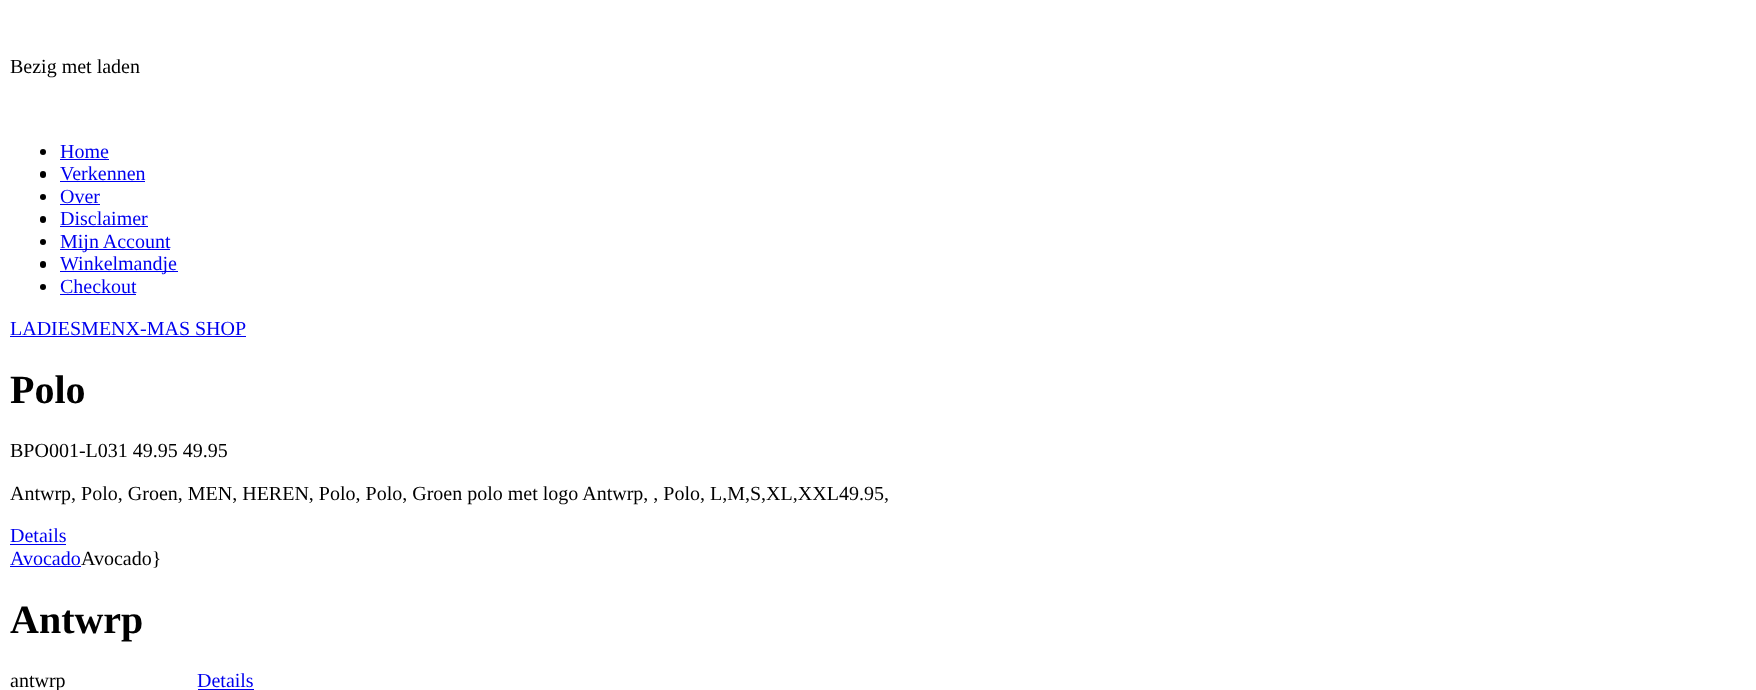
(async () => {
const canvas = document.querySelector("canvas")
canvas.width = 1756
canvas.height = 690
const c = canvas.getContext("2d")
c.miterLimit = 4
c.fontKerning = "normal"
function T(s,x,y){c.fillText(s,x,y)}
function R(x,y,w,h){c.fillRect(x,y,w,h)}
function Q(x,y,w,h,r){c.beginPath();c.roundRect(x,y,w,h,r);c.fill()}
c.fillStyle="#fff"
R(0,0,1756,690)
c.font="20px Liberation Serif"
c.fillStyle="#000"
T("Bezig met laden",10,73)
c.beginPath()
c.arc(43,152,3,0,7)
c.fill()
c.fillStyle="#00e"
T("Home",60,158)
R(60,159,49,1)
c.fillStyle="#000"
Q(40,171,6,7,3)
c.fillStyle="#00e"
T("Verkennen",60,180)
R(60,181,85,1)
c.fillStyle="#000"
c.beginPath()
c.arc(43,197,3,0,7)
c.fill()
c.fillStyle="#00e"
T("Over",60,203)
R(60,204,40,1)
c.fillStyle="#000"
Q(40,216,6,7,3)
c.fillStyle="#00e"
T("Disclaimer",60,225)
R(60,226,88,1)
c.fillStyle="#000"
c.beginPath()
c.arc(43,242,3,0,7)
c.fill()
c.fillStyle="#00e"
R(60,249,110,1)
T("Mijn Account",60,248)
c.fillStyle="#000"
Q(40,261,6,7,3)
c.fillStyle="#00e"
R(60,271,118,1)
T("Winkelmandje",60,270)
c.fillStyle="#000"
c.beginPath()
c.arc(43,287,3,0,7)
c.fill()
c.fillStyle="#00e"
T("Checkout",60,293)
R(60,294,76,1)
T("LADIESMENX-MAS SHOP",10,335)
R(10,336,236,1)
c.font="bold 40px Liberation Serif"
c.fillStyle="#000"
T("Polo",10,403)
c.font="20px Liberation Serif"
T("BPO001-L031 49.95 49.95",10,457)
T("Antwrp, Polo, Groen, MEN, HEREN, Polo, Polo, Groen polo met logo Antwrp, , Polo, L,M,S,XL,XXL49.95,",10,500)
c.fillStyle="#00e"
T("Details",10,542)
R(10,544,56,1)
T("Avocado",10,565)
R(10,566,71,1)
c.fillStyle="#000"
T("Avocado}",81,565)
c.font="bold 40px Liberation Serif"
T("Antwrp",10,633)
c.font="20px Liberation Serif"
T("antwrp",10,687)
c.fillStyle="#00e"
T("Details",197,687)
R(198,689,56,1)
})()
